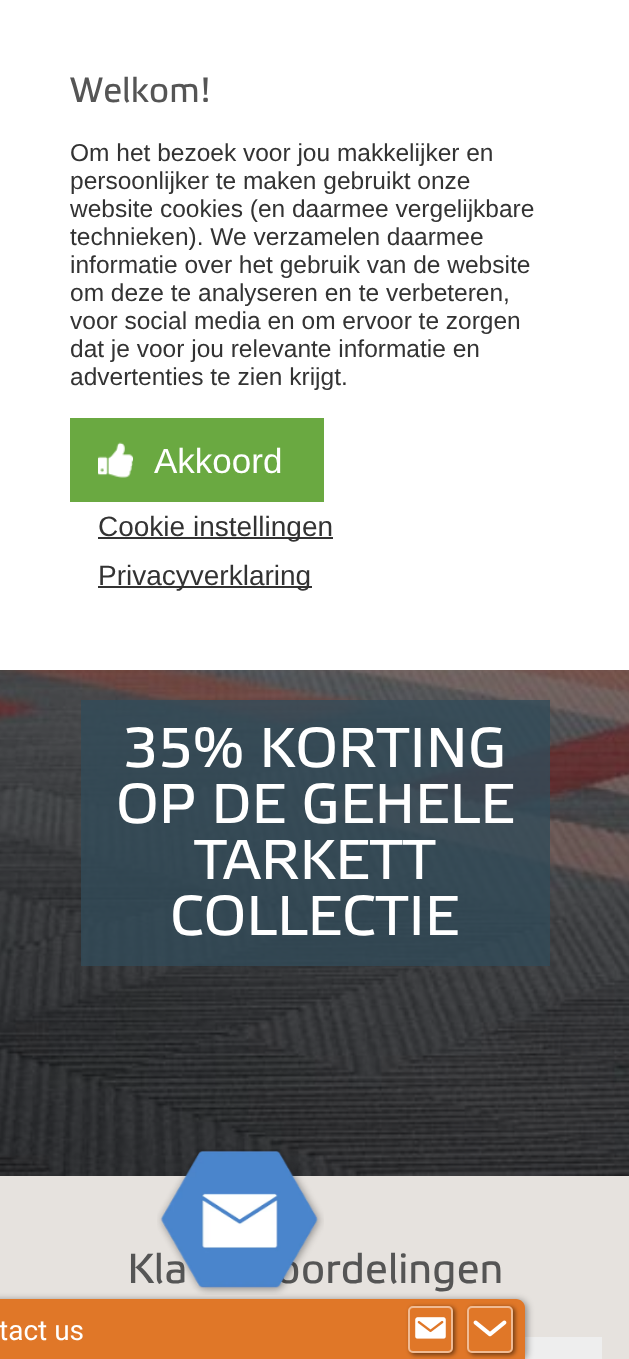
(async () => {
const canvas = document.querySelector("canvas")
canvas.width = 629
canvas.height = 1359
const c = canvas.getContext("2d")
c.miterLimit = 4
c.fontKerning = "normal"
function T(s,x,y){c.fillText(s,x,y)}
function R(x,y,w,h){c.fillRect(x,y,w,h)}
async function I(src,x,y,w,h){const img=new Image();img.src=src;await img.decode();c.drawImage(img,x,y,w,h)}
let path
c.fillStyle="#fff"
R(0,0,629,1359)
c.font="35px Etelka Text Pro"
c.fillStyle="#555"
T("Welkom!",70,102)
c.font="24.5px Liberation Sans"
c.fillStyle="#333"
T("Om het bezoek voor jou makkelijker en",70,161)
T("persoonlijker te maken gebruikt onze",70,189)
T("website cookies (en daarmee vergelijkbare",70,217)
T("technieken). We verzamelen daarmee",70,245)
T("informatie over het gebruik van de website",70,273)
T("om deze te analyseren en te verbeteren,",70,301)
T("voor social media en om ervoor te zorgen",70,329)
T("dat je voor jou relevante informatie en",70,357)
T("advertenties te zien krijgt.",70,385)
c.fillStyle="#6aa941"
R(70,418,254,84)
await I("1.png",98,442,35,36)
c.font="35px Liberation Sans"
c.fillStyle="#fff"
T("Akkoord",154,473)
c.fillStyle="#333"
R(98,537,235,2)
c.font="28px Liberation Sans"
T("Cookie instellingen",98,536)
R(98,586,214,2)
T("Privacyverklaring",98,585)
await I("2.png",0,670,629,506)
c.fillStyle="#324b59cc"
R(81,700,469,266)
c.font="56px Etelka Text Pro"
c.fillStyle="#fff"
T("35% KORTING",123,767)
T("OP DE GEHELE",116,823)
T("TARKETT",194,879)
T("COLLECTIE",170,935)
c.fillStyle="#e6e2de"
R(0,1176,629,183)
c.font="42px Etelka Text Pro"
c.fillStyle="#555"
T("Kla",127,1283)
T("oordelingen",276,1283)
c.fillStyle="#eee"
R(525,1337,77,22)
c.fillStyle="#00000066"
c.filter="blur(3.5px)"
c.beginPath()
c.roundRect(-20,1300,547,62,9)
c.fill()
c.filter="none"
await I("3.png",157,1149,167,146)
c.fillStyle="#e07728"
path = new Path2D("M0 1299h516c5 0 9 4 9 9v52h-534v-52c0-5 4-9 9-9z")
c.fill(path)
c.font="28px Roboto"
c.fillStyle="#fff"
T("tact us",-1,1340)
c.save()
path = new Path2D("M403 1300h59v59h-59zm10 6h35c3 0 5 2 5 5v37c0 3-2 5-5 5h-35c-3 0-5-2-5-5v-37c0-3 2-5 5-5z")
c.clip(path,"evenodd")
c.fillStyle="#00000080"
c.filter="blur(2px)"
c.beginPath()
c.roundRect(410,1307,45,48,5)
c.fill()
c.filter="none"
c.restore()
c.beginPath()
c.roundRect(409,1307,43,45,4)
c.strokeStyle="#ffffff80"
c.lineWidth=2
c.stroke()
await I("4.png",415,1317,31,22)
c.save()
path = new Path2D("M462 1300h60v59h-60zm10 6h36c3 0 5 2 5 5v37c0 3-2 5-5 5h-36c-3 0-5-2-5-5v-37c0-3 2-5 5-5z")
c.clip(path,"evenodd")
c.fillStyle="#00000080"
c.filter="blur(2px)"
c.beginPath()
c.roundRect(469,1307,46,48,5)
c.fill()
c.filter="none"
c.restore()
c.beginPath()
c.roundRect(468,1307,44,45,4)
c.stroke()
await I("5.png",473,1320,34,17)
})()
